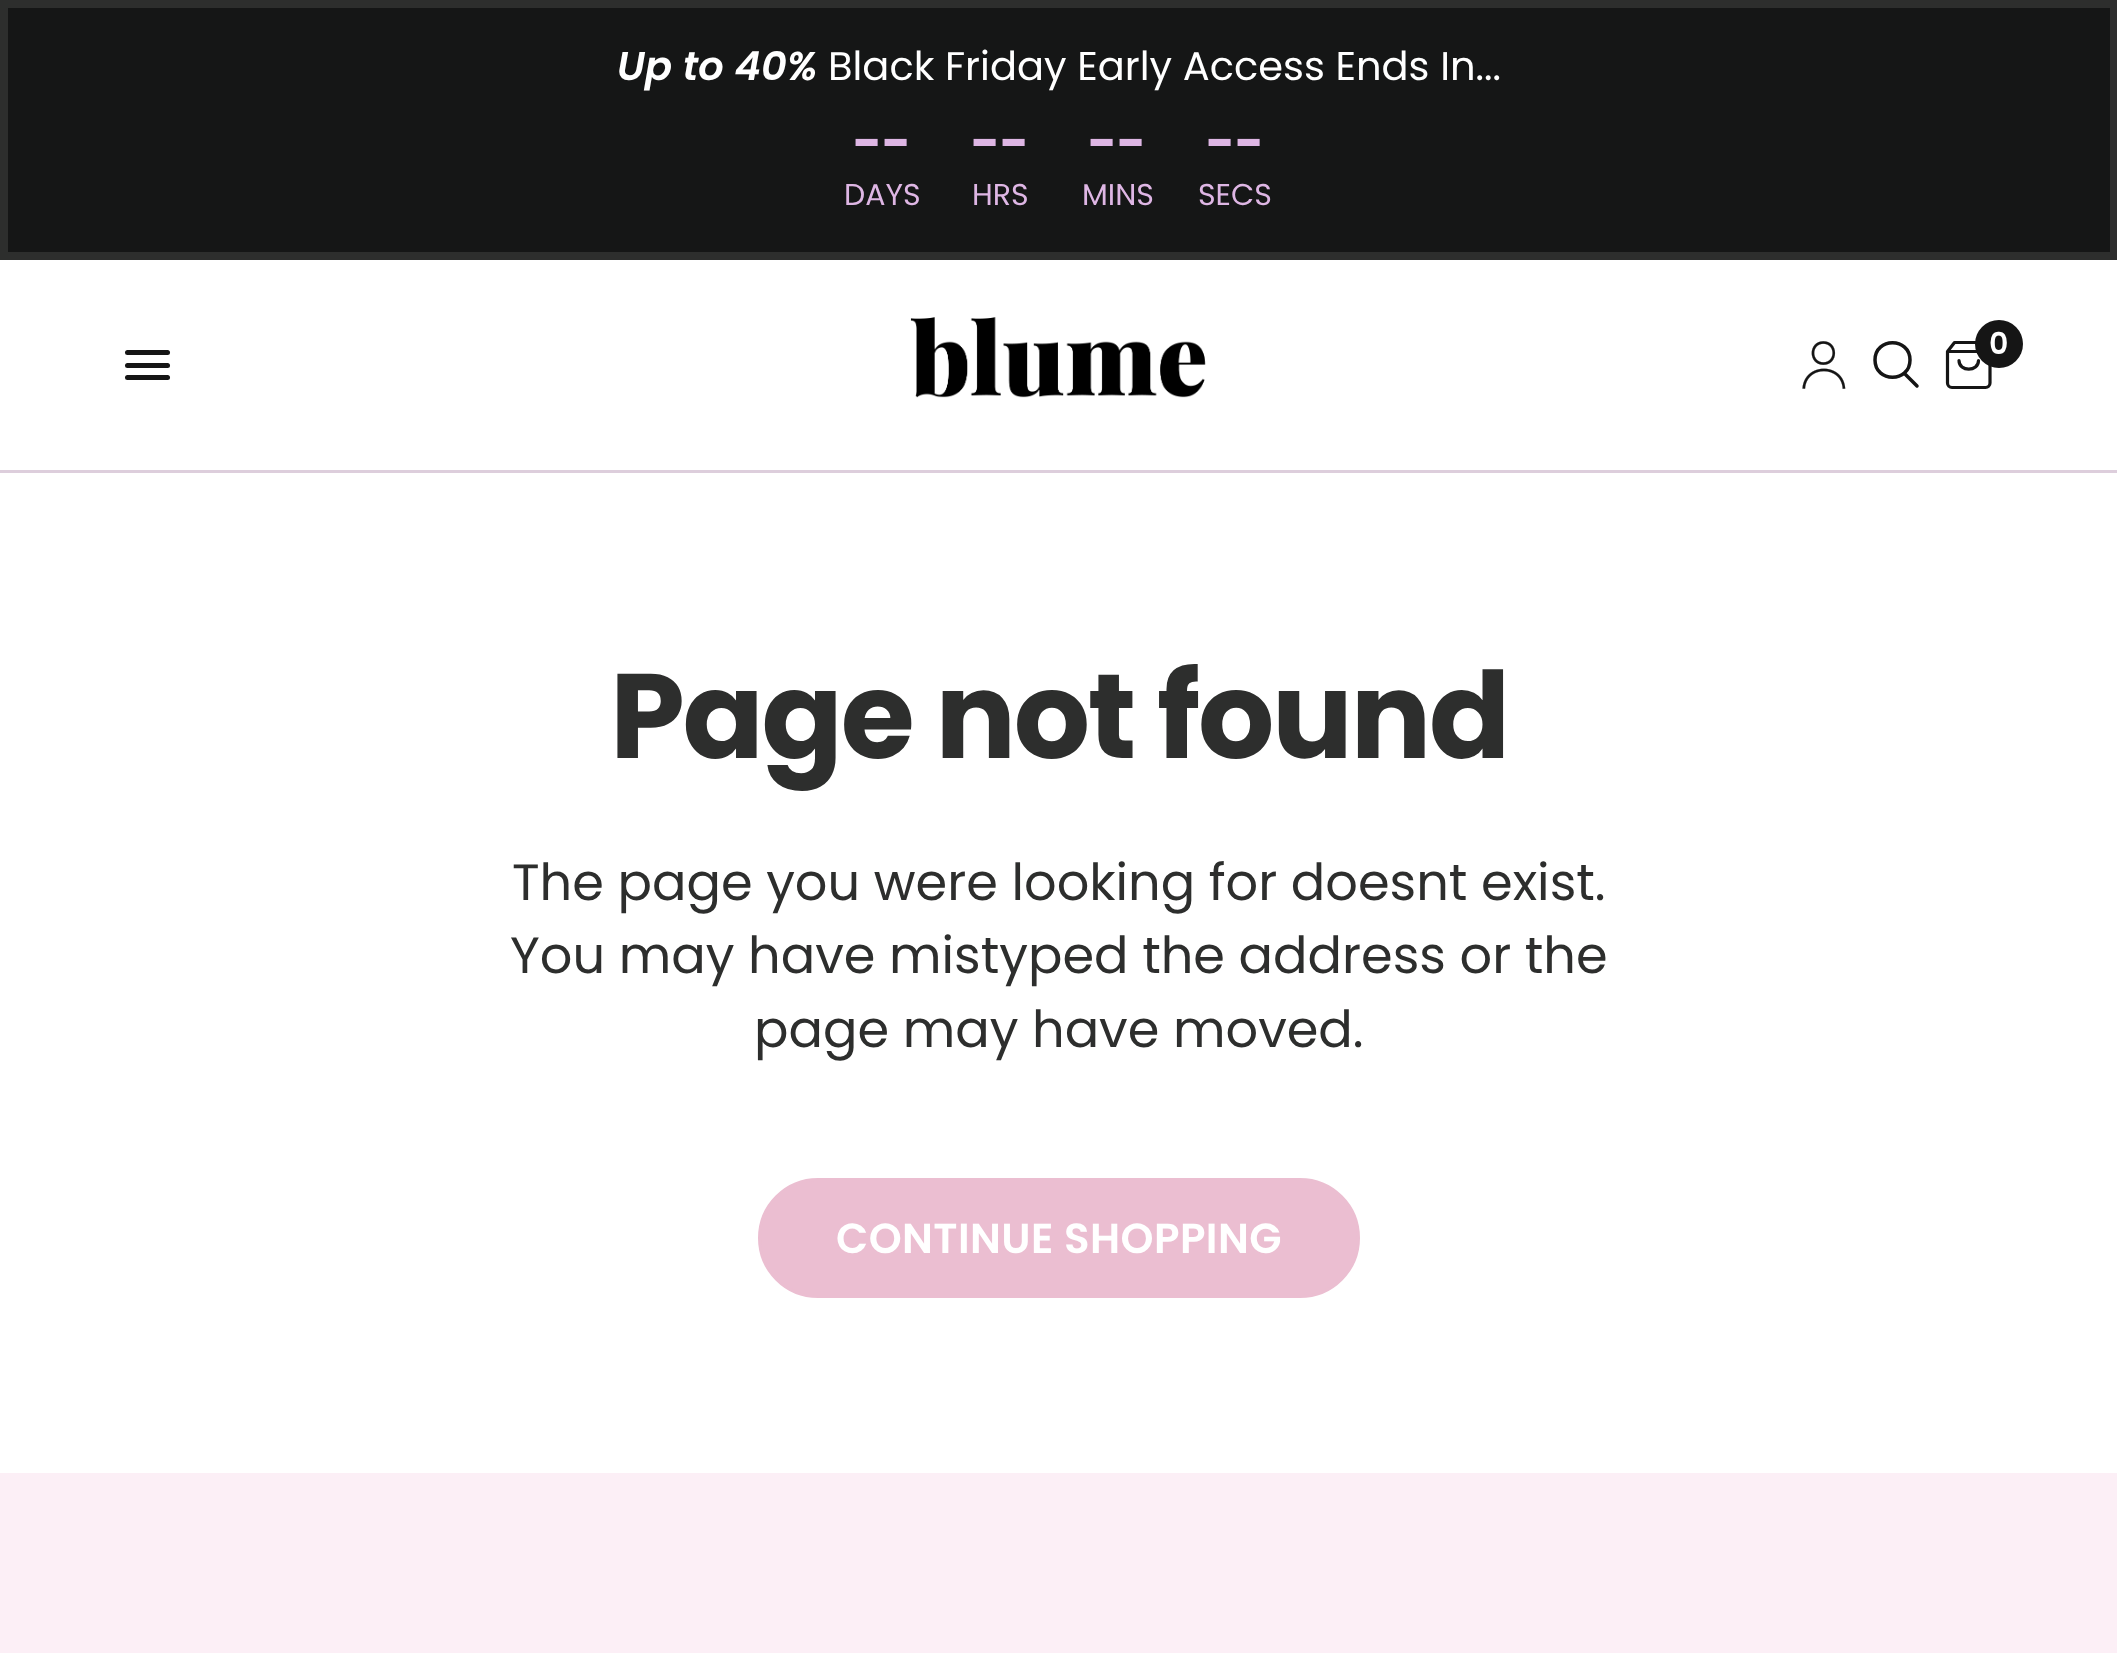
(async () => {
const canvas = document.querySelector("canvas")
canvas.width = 2117
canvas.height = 1653
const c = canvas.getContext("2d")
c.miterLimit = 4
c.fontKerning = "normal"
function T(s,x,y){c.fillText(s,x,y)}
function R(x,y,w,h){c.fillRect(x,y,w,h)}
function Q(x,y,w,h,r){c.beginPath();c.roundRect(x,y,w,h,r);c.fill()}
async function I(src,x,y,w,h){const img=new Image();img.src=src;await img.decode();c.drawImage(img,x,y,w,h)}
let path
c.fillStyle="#fff"
R(0,0,2117,1653)
c.fillStyle="#151616"
c.beginPath()
c.rect(4,4,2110,252)
c.fill()
c.strokeStyle="#2d2e2d"
c.lineWidth=8
c.stroke()
c.font="italic 600 40px Poppins"
c.fillStyle="#fff"
T("Up to 40%",617,80)
c.font="40px Poppins"
T("Black Friday Early Access Ends In...",828,80)
c.font="bold 50px Poppins"
c.fillStyle="#deb6e4"
T("--",853,160)
c.font="30px Poppins"
T("DAYS",844,205)
c.font="bold 50px Poppins"
T("--",971,160)
c.font="30px Poppins"
T("HRS",972,205)
c.font="bold 50px Poppins"
T("--",1088,160)
c.font="30px Poppins"
T("MINS",1082,205)
c.font="bold 50px Poppins"
T("--",1206,160)
c.font="30px Poppins"
T("SECS",1198,205)
c.fillStyle="#ddcedc"
R(0,470,2117,3)
await I("1.png",910,317,296,81)
await I("2.png",1802,341,44,48)
path = new Path2D("M1905 374l12 12m-7-26c0 23-35 23-35 0c0-23 35-23 35 0z")
c.strokeStyle="#151515"
c.lineWidth=3.5
c.lineCap="round"
c.lineJoin="round"
c.stroke(path)
path = new Path2D("M1947.5 351.5l7-9h28.5l7 9m-42.5 0v31.5c0 2.5 2 4.5 4.5 4.5h33.5c2.5 0 4.5-2 4.5-4.5v-31.5m-42.5 0h42.5m-11.5 9c0 11.5-19.5 11.5-19.5 0")
c.lineWidth=3.2
c.stroke(path)
c.fillStyle="#151515"
c.beginPath()
c.arc(1999,344,24,0,7)
c.fill()
c.font="600 30px Poppins"
c.fillStyle="#fff"
T("0",1989,354)
c.fillStyle="#151515"
Q(125,350,45,5,2.5)
Q(125,363,45,5,2.5)
Q(125,375,45,5,2.5)
c.letterSpacing="-2.4px"
c.font="bold 120px Poppins"
c.fillStyle="#2d2e2d"
T("Page not found",610,758)
c.letterSpacing="0px"
c.font="51px Poppins"
T("The page you were looking for doesnt exist.",512,900)
T("You may have mistyped the address or the",510,973)
T("page may have moved.",754,1047)
c.fillStyle="#ebbed1"
c.beginPath()
c.roundRect(759.5,1179.5,599,117,58.5)
c.fill()
c.strokeStyle="#ebbed1"
c.lineWidth=3
c.lineJoin="miter"
c.stroke()
c.letterSpacing="0.4px"
c.font="600 42px Poppins"
c.fillStyle="#fff"
T("CONTINUE SHOPPING",836,1253)
c.fillStyle="#fceff6"
R(0,1473,2117,180)
})()
